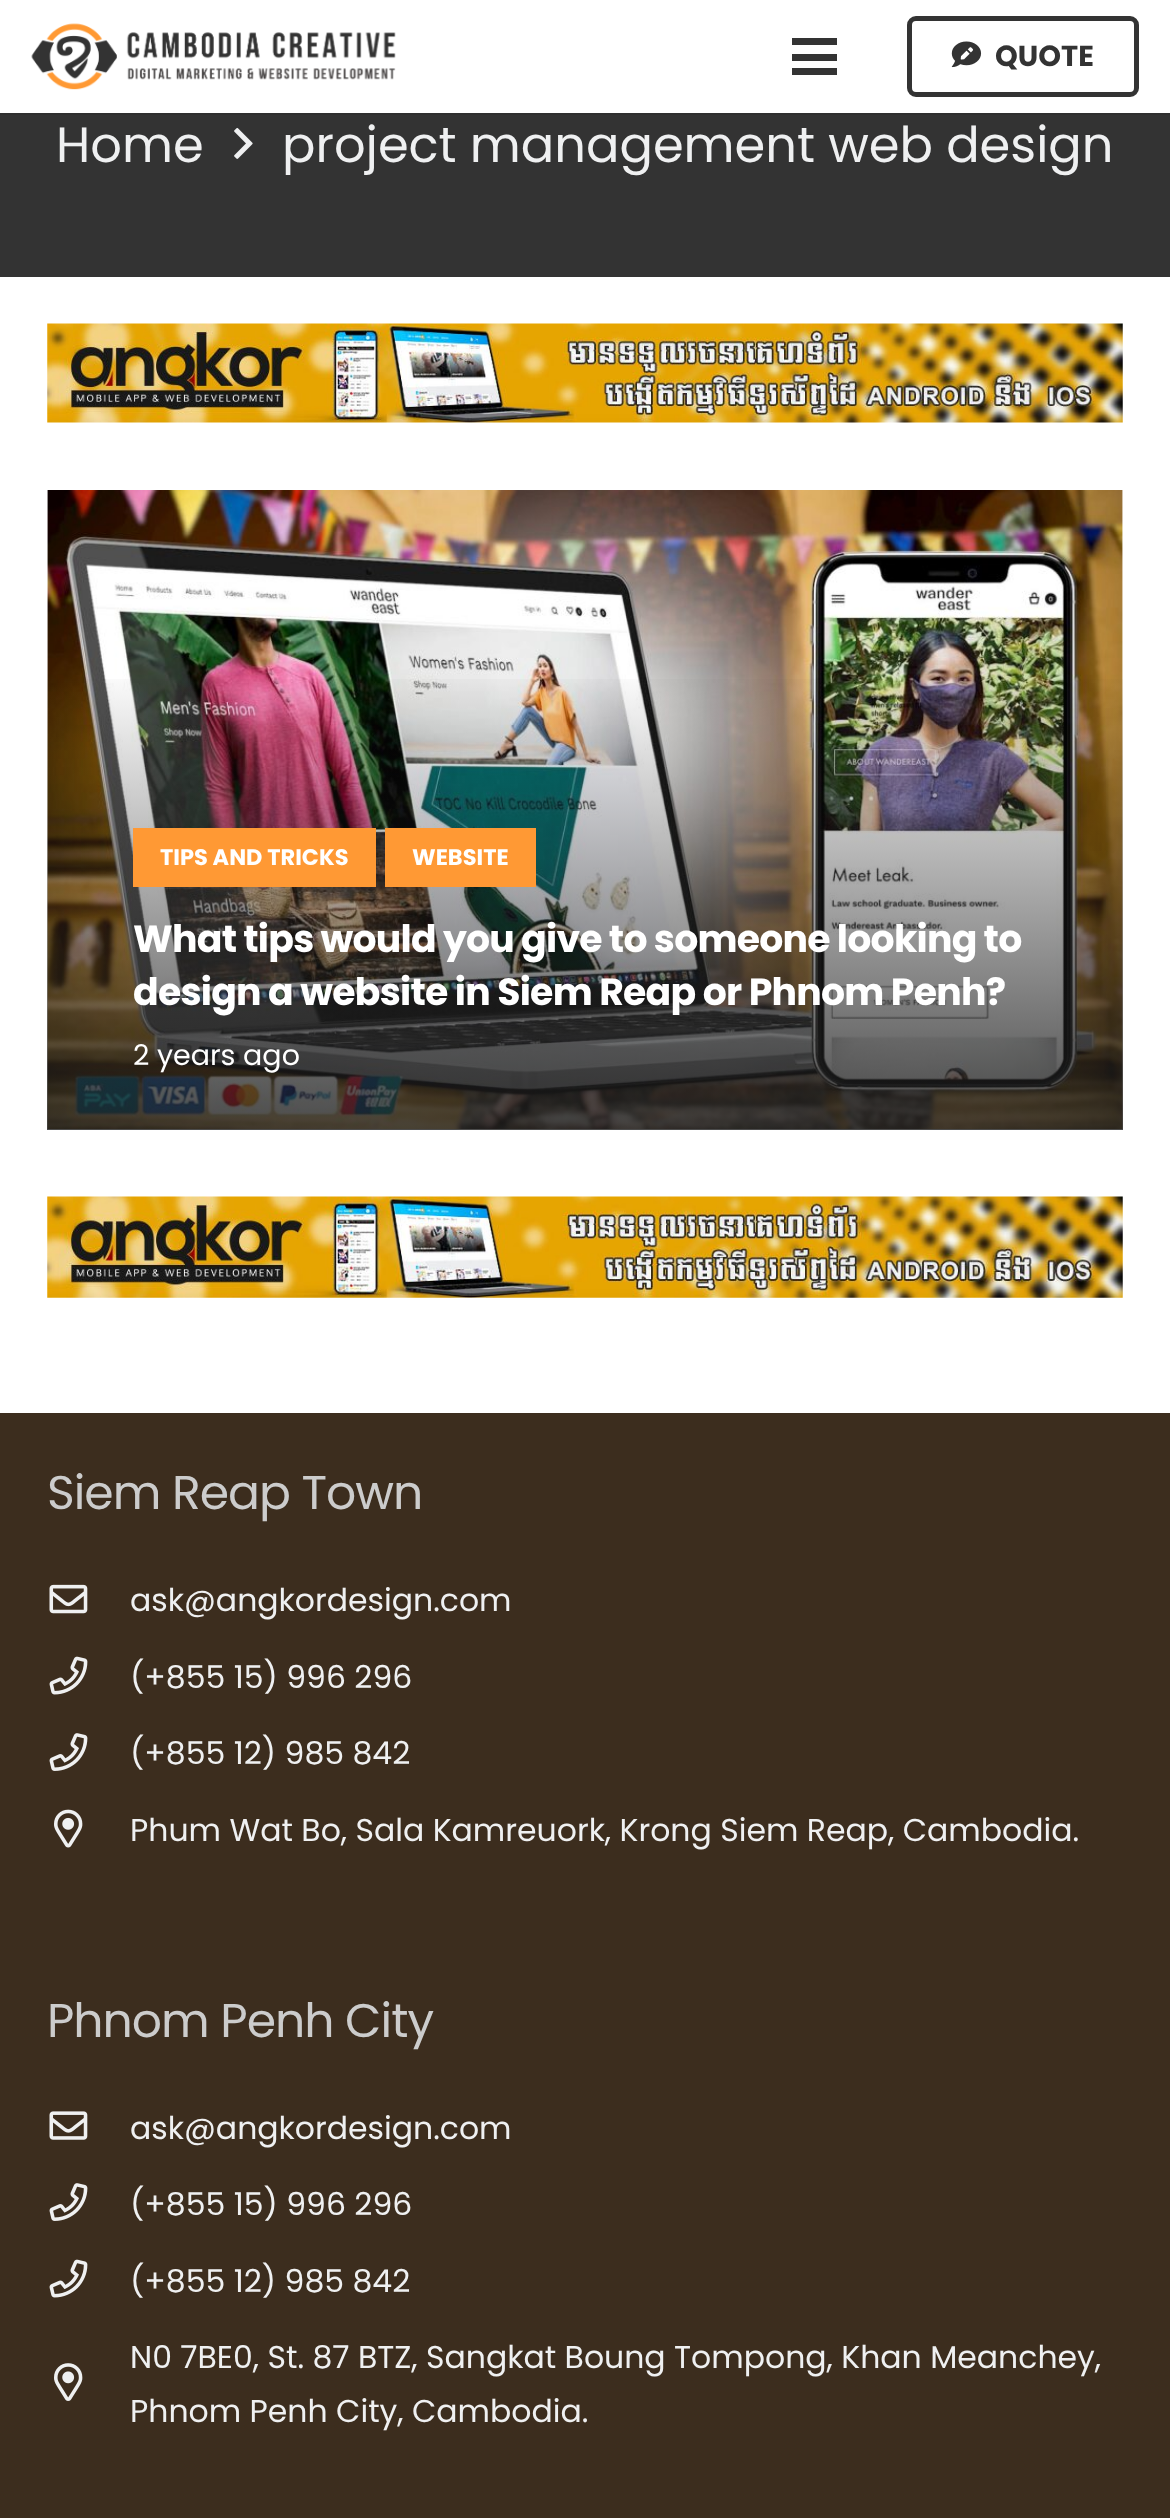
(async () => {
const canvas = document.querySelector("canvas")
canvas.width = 1170
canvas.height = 2518
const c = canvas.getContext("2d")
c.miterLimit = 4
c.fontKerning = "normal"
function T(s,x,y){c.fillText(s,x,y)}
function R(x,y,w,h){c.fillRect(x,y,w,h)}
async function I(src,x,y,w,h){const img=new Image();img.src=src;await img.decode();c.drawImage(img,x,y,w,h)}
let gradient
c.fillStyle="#fff"
R(0,0,1170,2518)
c.fillStyle="#2f2f2f"
R(0,113,1170,2)
await I("1.png",31,23,365,67)
c.fillStyle="#333"
R(792,54,45,7)
R(792,38,45,7)
R(792,68,45,7)
await I("2.png",951,41,31,27)
c.beginPath()
c.roundRect(909.5,18.5,227,76,6.5)
c.strokeStyle="#333"
c.lineWidth=5
c.stroke()
c.font="bold 29px Poppins"
T("QUOTE",995,66)
R(0,115,1170,162)
c.font="49.5px Poppins"
c.fillStyle="#eff0f1"
T("Home",56,162)
await I("3.png",234,127,19,32)
T("project management web design",282,162)
await I("4.png",47,323,1076,100)
await I("5.png",47,490,1076,639)
gradient = c.createLinearGradient(585,666,585,1130)
gradient.addColorStop(0,"#1e1e1e00")
gradient.addColorStop(1,"#1e1e1ecc")
c.fillStyle = gradient
R(47,679,1076,451)
c.fillStyle="#ff9934"
R(133,828,243,59)
c.font="bold 22.5px Poppins"
c.fillStyle="#fff"
T("TIPS AND TRICKS",160,865)
c.fillStyle="#ff9934"
R(385,828,151,59)
c.fillStyle="#fff"
T("WEBSITE",412,865)
c.letterSpacing="-0.75px"
c.wordSpacing="-0.25px"
c.font="bold 37.8px Poppins"
T("What tips would you give to someone looking to",133,952)
c.wordSpacing="0px"
T("design a website in Siem Reap or Phnom Penh?",133,1005)
c.letterSpacing="0px"
c.font="28.5px Poppins"
T("2 years ago",133,1065)
await I("6.png",47,1196,1076,102)
c.fillStyle="#3c2d1e"
R(0,1413,1170,1105)
c.letterSpacing="-1px"
c.font="47.25px Poppins"
c.fillStyle="#ccc"
T("Siem Reap Town",47,1509)
await I("7.png",49,1584,39,30)
c.letterSpacing="0px"
c.font="31.5px Poppins"
c.fillStyle="#eff0f1"
T("ask@angkordesign.com",130,1611)
await I("8.png",49,1656,39,39)
T("(+855 15) 996 296",130,1688)
await I("9.png",49,1733,39,38)
T("(+855 12) 985 842",130,1764)
await I("10.png",54,1809,29,39)
T("Phum Wat Bo, Sala Kamreuork, Krong Siem Reap, Cambodia.",130,1841)
c.letterSpacing="-1px"
c.font="47.25px Poppins"
c.fillStyle="#ccc"
T("Phnom Penh City",47,2037)
await I("11.png",49,2111,39,29)
c.letterSpacing="0px"
c.font="31.5px Poppins"
c.fillStyle="#eff0f1"
T("ask@angkordesign.com",130,2139)
await I("9.png",49,2183,39,38)
T("(+855 15) 996 296",130,2215)
await I("8.png",49,2259,39,39)
T("(+855 12) 985 842",130,2292)
await I("12.png",54,2363,29,38)
T("N0 7BE0, St. 87 BTZ, Sangkat Boung Tompong, Khan Meanchey,",130,2368)
T("Phnom Penh City, Cambodia.",130,2422)
})()
